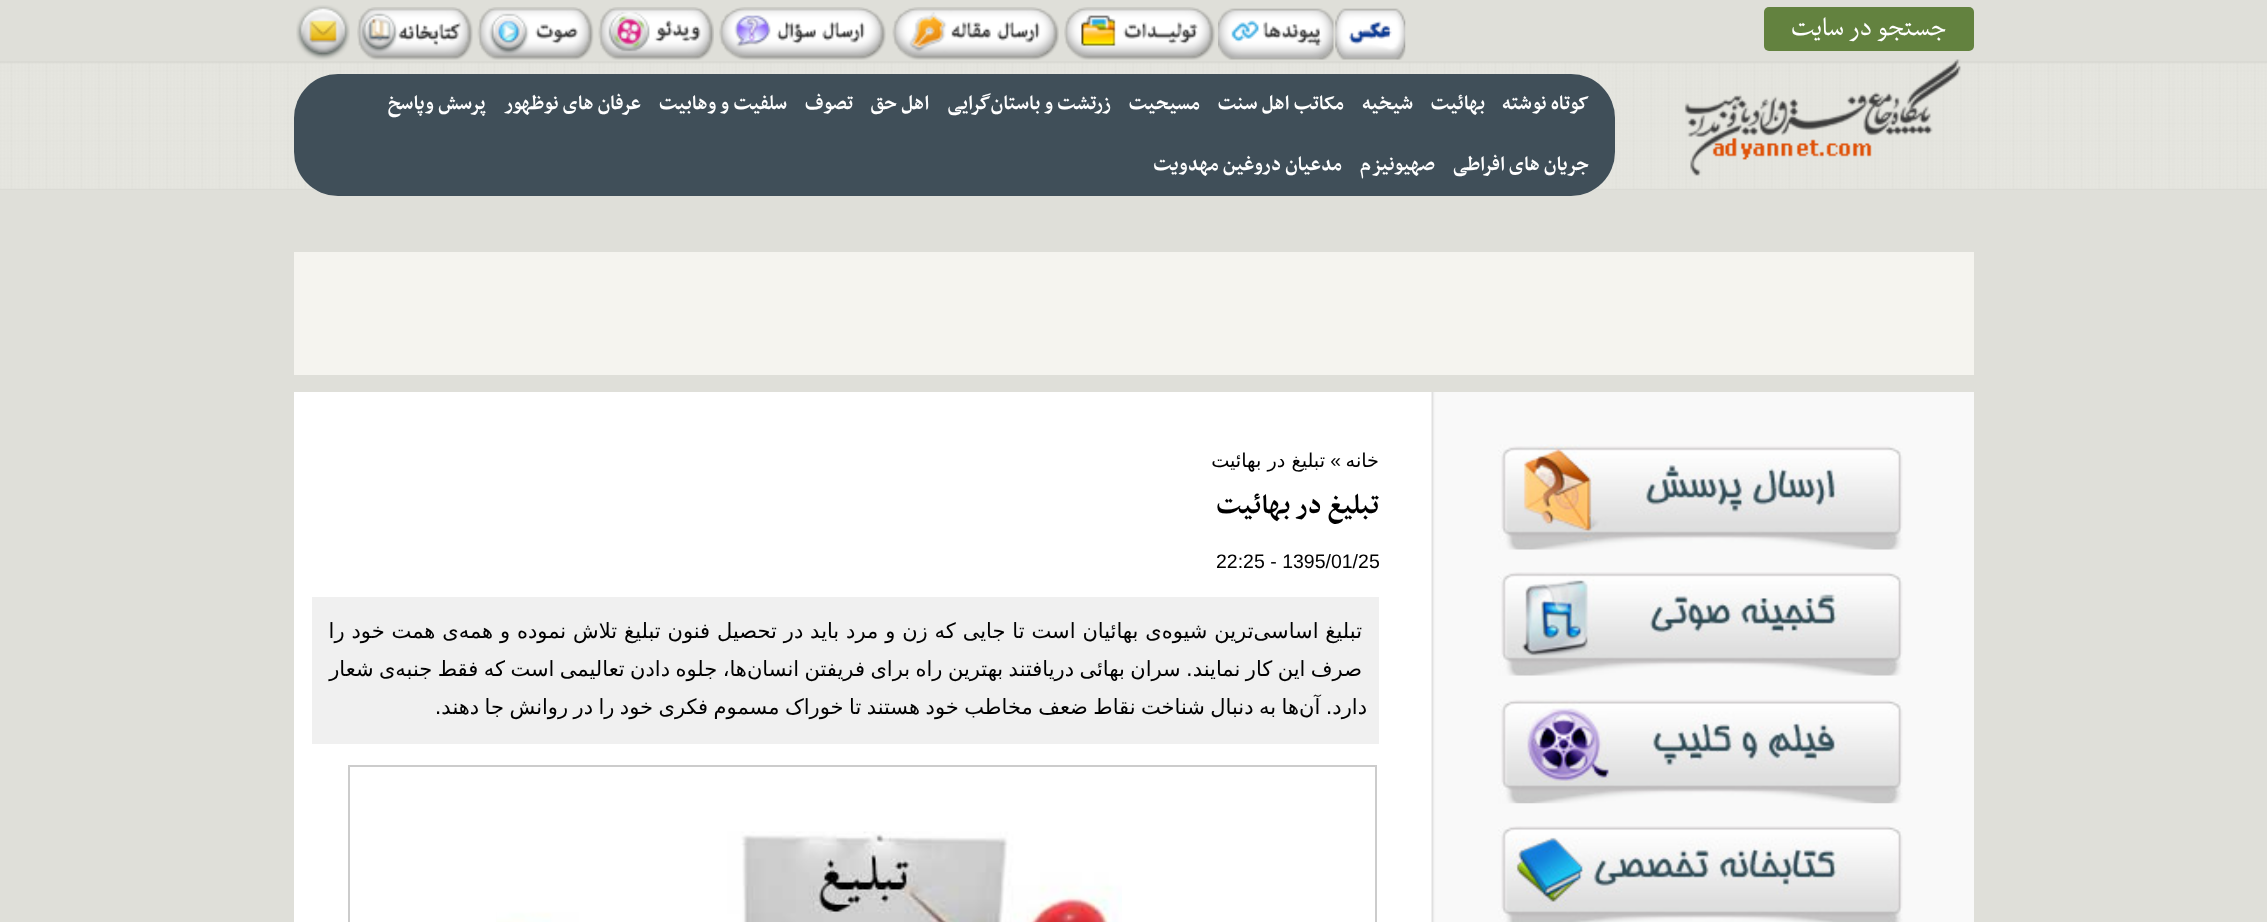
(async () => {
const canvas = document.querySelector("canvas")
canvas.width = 2267
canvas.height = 922
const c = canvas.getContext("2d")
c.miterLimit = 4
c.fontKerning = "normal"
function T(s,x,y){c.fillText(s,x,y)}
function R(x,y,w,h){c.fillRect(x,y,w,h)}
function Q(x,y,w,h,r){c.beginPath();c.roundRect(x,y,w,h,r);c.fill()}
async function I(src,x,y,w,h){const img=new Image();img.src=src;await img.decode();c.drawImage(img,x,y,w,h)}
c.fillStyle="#dfdfd9"
R(0,0,2267,922)
await I("1.png",0,61,2267,129)
c.fillStyle="#63823f"
Q(1764,7,210,44,5)
c.direction="rtl"
c.font="29.75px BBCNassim"
c.fillStyle="#fff"
T("جستجو در سایت",1946,35)
await I("2.png",1335,8,71,52)
await I("3.png",1218,8,116,52)
await I("4.png",1064,7,151,53)
await I("5.png",892,7,167,53)
await I("6.png",719,7,167,53)
await I("7.png",598,7,116,53)
await I("8.png",477,7,117,53)
await I("9.png",357,7,116,53)
await I("10.png",296,5,54,55)
await I("11.png",1684,59,277,117)
c.fillStyle="#404f59"
Q(294,74,1321,122,44)
c.font="bold 23px BBCNassim"
c.fillStyle="#fff"
T("کوتاه نوشته",1589,109)
T("بهائیت",1485,109)
T("شیخیه",1413,109)
T("مکاتب اهل سنت",1344,109)
T("مسیحیت",1200,109)
T("زرتشت و باستان‌گرایی",1111,109)
T("اهل حق",929,109)
T("تصوف",853,109)
T("سلفیت و وهابیت",787,109)
T("عرفان های نوظهور",641,109)
T("پرسش وپاسخ",486,109)
T("جریان های افراطی",1589,170)
T("صهیونیزم",1435,170)
T("مدعیان دروغین مهدویت",1342,170)
c.fillStyle="#f5f4ef"
R(294,252,1680,123)
c.fillStyle="#fff"
R(294,392,1138,530)
await I("12.png",1431,392,543,530)
await I("13.png",1498,444,405,106)
await I("14.png",1498,572,405,104)
await I("15.png",1498,699,405,105)
await I("16.png",1498,826,405,96)
c.font="19.25px DejaVu Sans"
c.fillStyle="#000"
T("خانه",1379,467)
c.font="19.25px Liberation Sans"
T("»",1341,467)
c.font="19.25px DejaVu Sans"
T("تبلیغ در بهائیت",1325,467)
c.font="bold 31.5px BBCNassim"
T("تبلیغ در بهائیت",1379,513)
c.direction="ltr"
c.font="19.5px Liberation Sans"
T("22:25 - 1395/01/25",1216,568)
c.fillStyle="#f0f0f0"
R(312,597,1067,147)
c.wordSpacing="0.2px"
c.direction="rtl"
c.font="21px DejaVu Sans"
c.fillStyle="#000"
T("تبلیغ اساسی‌ترین شیوه‌ی بهائیان است تا جایی که زن و مرد باید در تحصیل فنون تبلیغ تلاش نموده و همه‌ی همت خود را",1362,638)
c.wordSpacing="-1.25px"
T("صرف این کار نمایند. سران بهائی دریافتند بهترین راه برای فریفتن انسان‌ها، جلوه دادن تعالیمی است که فقط جنبه‌ی شعار",1362,676)
T("دارد. آن‌ها به دنبال شناخت نقاط ضعف مخاطب خود هستند تا خوراک مسموم فکری خود را در روانش جا دهند.",1367,714)
c.strokeStyle="#ccc"
c.lineWidth=2
c.strokeRect(349,766,1027,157)
await I("17.png",496,831,626,91)
})()
